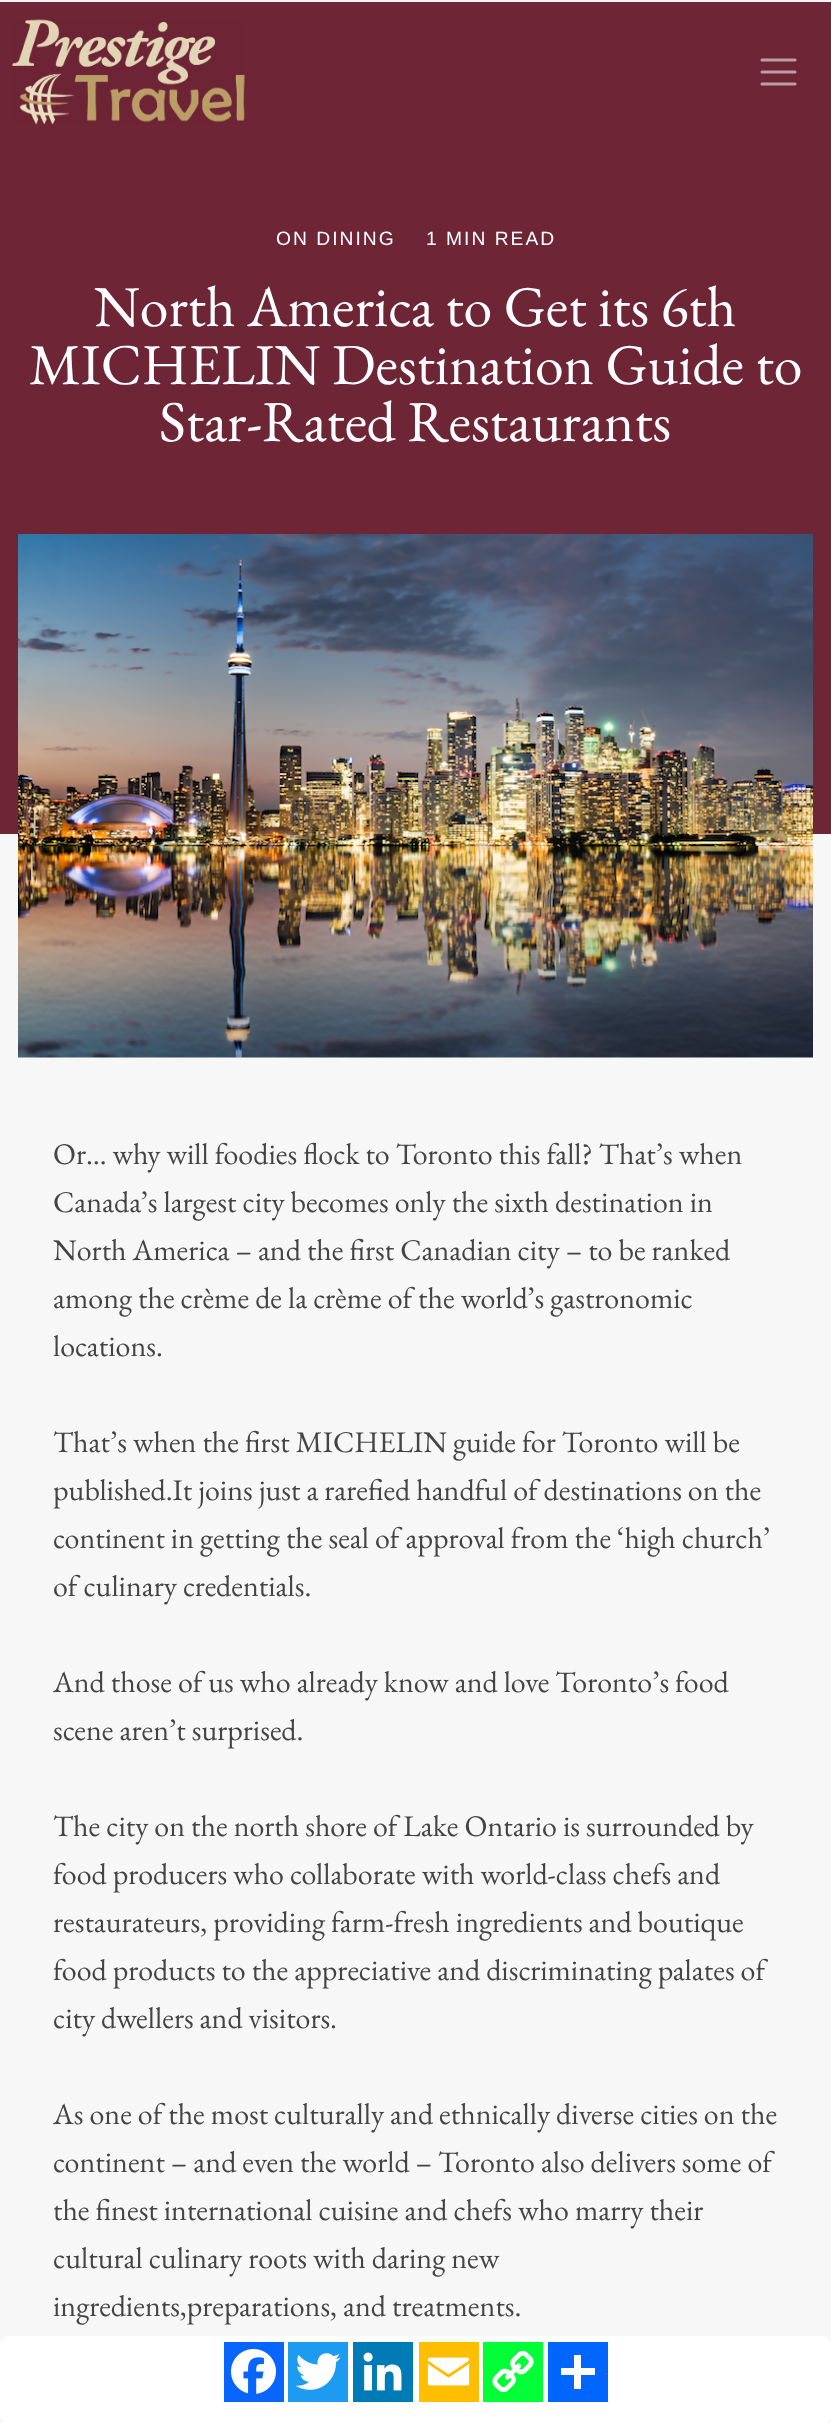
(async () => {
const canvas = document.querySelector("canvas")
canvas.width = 831
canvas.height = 2423
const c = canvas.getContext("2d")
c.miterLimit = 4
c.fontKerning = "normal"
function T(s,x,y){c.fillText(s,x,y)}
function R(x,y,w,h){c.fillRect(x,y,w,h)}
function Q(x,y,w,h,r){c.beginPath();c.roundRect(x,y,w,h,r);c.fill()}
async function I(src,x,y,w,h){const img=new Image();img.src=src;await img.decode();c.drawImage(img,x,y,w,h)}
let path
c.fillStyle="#f7f7f7"
R(0,0,831,2423)
c.fillStyle="#6e2536"
R(0,2,831,832)
await I("1.png",12,19,233,106)
path = new Path2D("M762 60h33m-33 12h33m-33 12h33")
c.strokeStyle="#be9da5"
c.lineWidth=3
c.lineCap="round"
c.stroke(path)
c.letterSpacing="2px"
c.font="19.25px Liberation Sans"
c.fillStyle="#fff"
T("ON DINING",276,245)
T("1 MIN READ",426,245)
c.letterSpacing="0px"
c.font="57.8px EB Garamond"
T("North America to Get its 6th",94,326)
T("MICHELIN Destination Guide to",29,384)
T("Star-Rated Restaurants",159,441)
await I("2.png",18,534,795,524)
c.font="30px EB Garamond"
c.fillStyle="#444"
T("Or… why will foodies flock to Toronto this fall? That’s when",53,1164)
T("Canada’s largest city becomes only the sixth destination in",53,1212)
T("North America – and the first Canadian city – to be ranked",53,1260)
T("among the crème de la crème of the world’s gastronomic",53,1308)
T("locations.",53,1356)
T("That’s when the first MICHELIN guide for Toronto will be",53,1452)
T("published.It joins just a rarefied handful of destinations on the",53,1500)
T("continent in getting the seal of approval from the ‘high church’",53,1548)
T("of culinary credentials.",53,1596)
T("And those of us who already know and love Toronto’s food",53,1692)
T("scene aren’t surprised.",53,1740)
T("The city on the north shore of Lake Ontario is surrounded by",53,1836)
T("food producers who collaborate with world-class chefs and",53,1884)
T("restaurateurs, providing farm-fresh ingredients and boutique",53,1932)
T("food products to the appreciative and discriminating palates of",53,1980)
T("city dwellers and visitors.",53,2028)
T("As one of the most culturally and ethnically diverse cities on the",53,2124)
T("continent – and even the world – Toronto also delivers some of",53,2172)
T("the finest international cuisine and chefs who marry their",53,2220)
T("cultural culinary roots with daring new",53,2268)
T("ingredients,preparations, and treatments.",53,2316)
c.fillStyle="#fff"
Q(0,2336,831,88,9)
c.fillStyle="#0866ff"
R(224,2342,60,60)
await I("3.png",231,2349,45,45)
c.fillStyle="#1d9bf0"
R(288,2342,60,60)
await I("4.png",295,2353,46,37)
c.fillStyle="#007bb5"
R(353,2342,60,60)
await I("5.png",363,2352,39,39)
c.fillStyle="#ffbe00"
R(419,2342,60,60)
await I("6.png",427,2357,43,29)
c.fillStyle="#00ff36"
R(483,2342,60,60)
await I("7.png",492,2350,42,43)
c.fillStyle="#0166ff"
R(548,2342,60,60)
c.fillStyle="#fff"
R(574,2355,7,34)
R(561,2368,34,7)
})()
